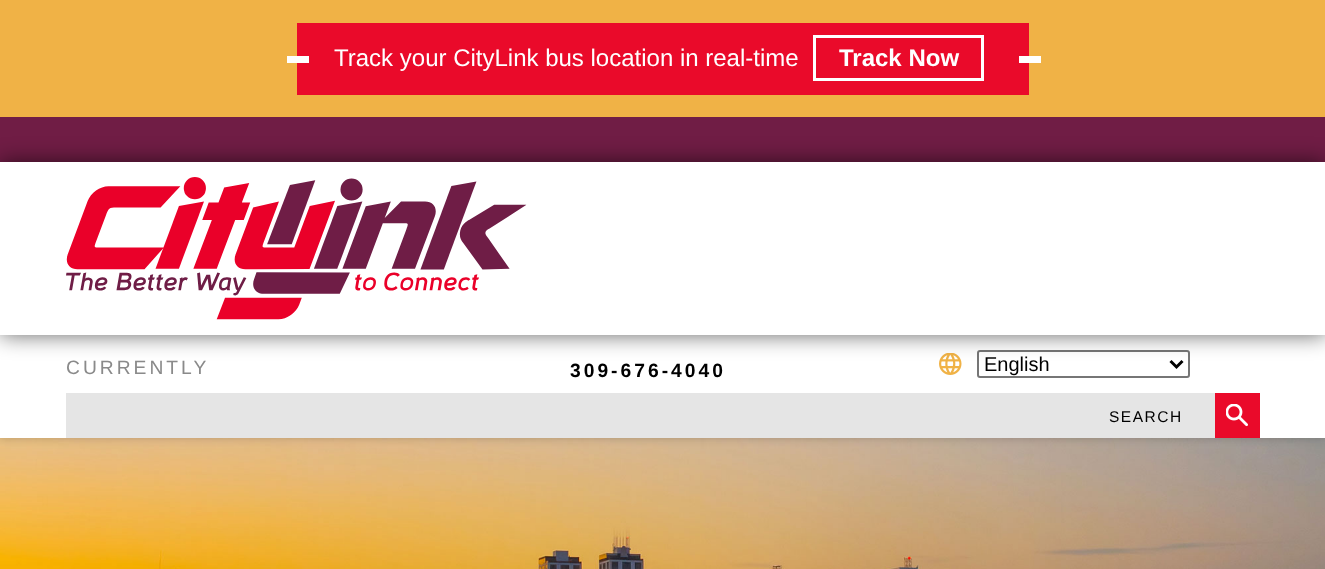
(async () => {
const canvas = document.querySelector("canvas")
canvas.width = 1325
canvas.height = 569
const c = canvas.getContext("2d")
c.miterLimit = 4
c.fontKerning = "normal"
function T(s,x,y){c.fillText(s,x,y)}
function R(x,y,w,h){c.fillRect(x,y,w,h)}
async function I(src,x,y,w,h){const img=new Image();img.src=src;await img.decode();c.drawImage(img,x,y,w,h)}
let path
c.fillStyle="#fff"
R(0,0,1325,569)
await I("4.png",0,438,1325,131)
c.fillStyle="#00000033"
c.filter="blur(4px)"
c.beginPath()
c.rect(0,0,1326,438)
c.fill()
c.filter="none"
c.fillStyle="#fff"
R(0,162,1325,276)
c.fillStyle="#f0b246"
R(0,0,1325,117)
c.fillStyle="#ea0a2a"
R(297,23,732,72)
c.fillStyle="#fff"
R(287,56,22,7)
c.font="24px Liberation Sans"
T("Track your CityLink bus location in real-time",334,66)
c.strokeStyle="#fff"
c.lineWidth=3
c.strokeRect(814.5,36.5,168,43)
c.font="bold 24px Liberation Sans"
T("Track Now",839,66)
R(1019,56,22,7)
c.fillStyle="#701d45"
R(0,117,1325,45)
await I("2.png",939,353,23,22)
c.beginPath()
c.roundRect(978,351,211,26,2)
c.strokeStyle="#767676"
c.lineWidth=2
c.stroke()
path = new Path2D("M1170.5 361l6 6l6-6")
c.strokeStyle="#000"
c.lineWidth=3
c.stroke(path)
c.save()
path = new Path2D("M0 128h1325v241h-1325zm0 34h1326v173h-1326z")
c.clip(path,"evenodd")
c.fillStyle="#00000099"
c.filter="blur(11px)"
c.beginPath()
c.rect(0,162,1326,173)
c.fill()
c.filter="none"
c.restore()
await I("1.png",66,177,461,143)
c.letterSpacing="3px"
c.font="19.25px Liberation Sans"
c.fillStyle="#8a8a8a"
T("CURRENTLY",66,374)
c.font="bold 19.25px Liberation Sans"
c.fillStyle="#000"
T("309-676-4040",570,377)
c.letterSpacing="0px"
c.font="20px Liberation Sans"
T("English",984,371)
c.fillStyle="#e5e5e5"
R(66,393,1149,45)
c.letterSpacing="1.5px"
c.font="15.5px Liberation Sans"
c.fillStyle="#000"
T("SEARCH",1109,422)
c.fillStyle="#ea0a2a"
R(1215,393,45,45)
await I("3.png",1226,404,22,23)
})()
